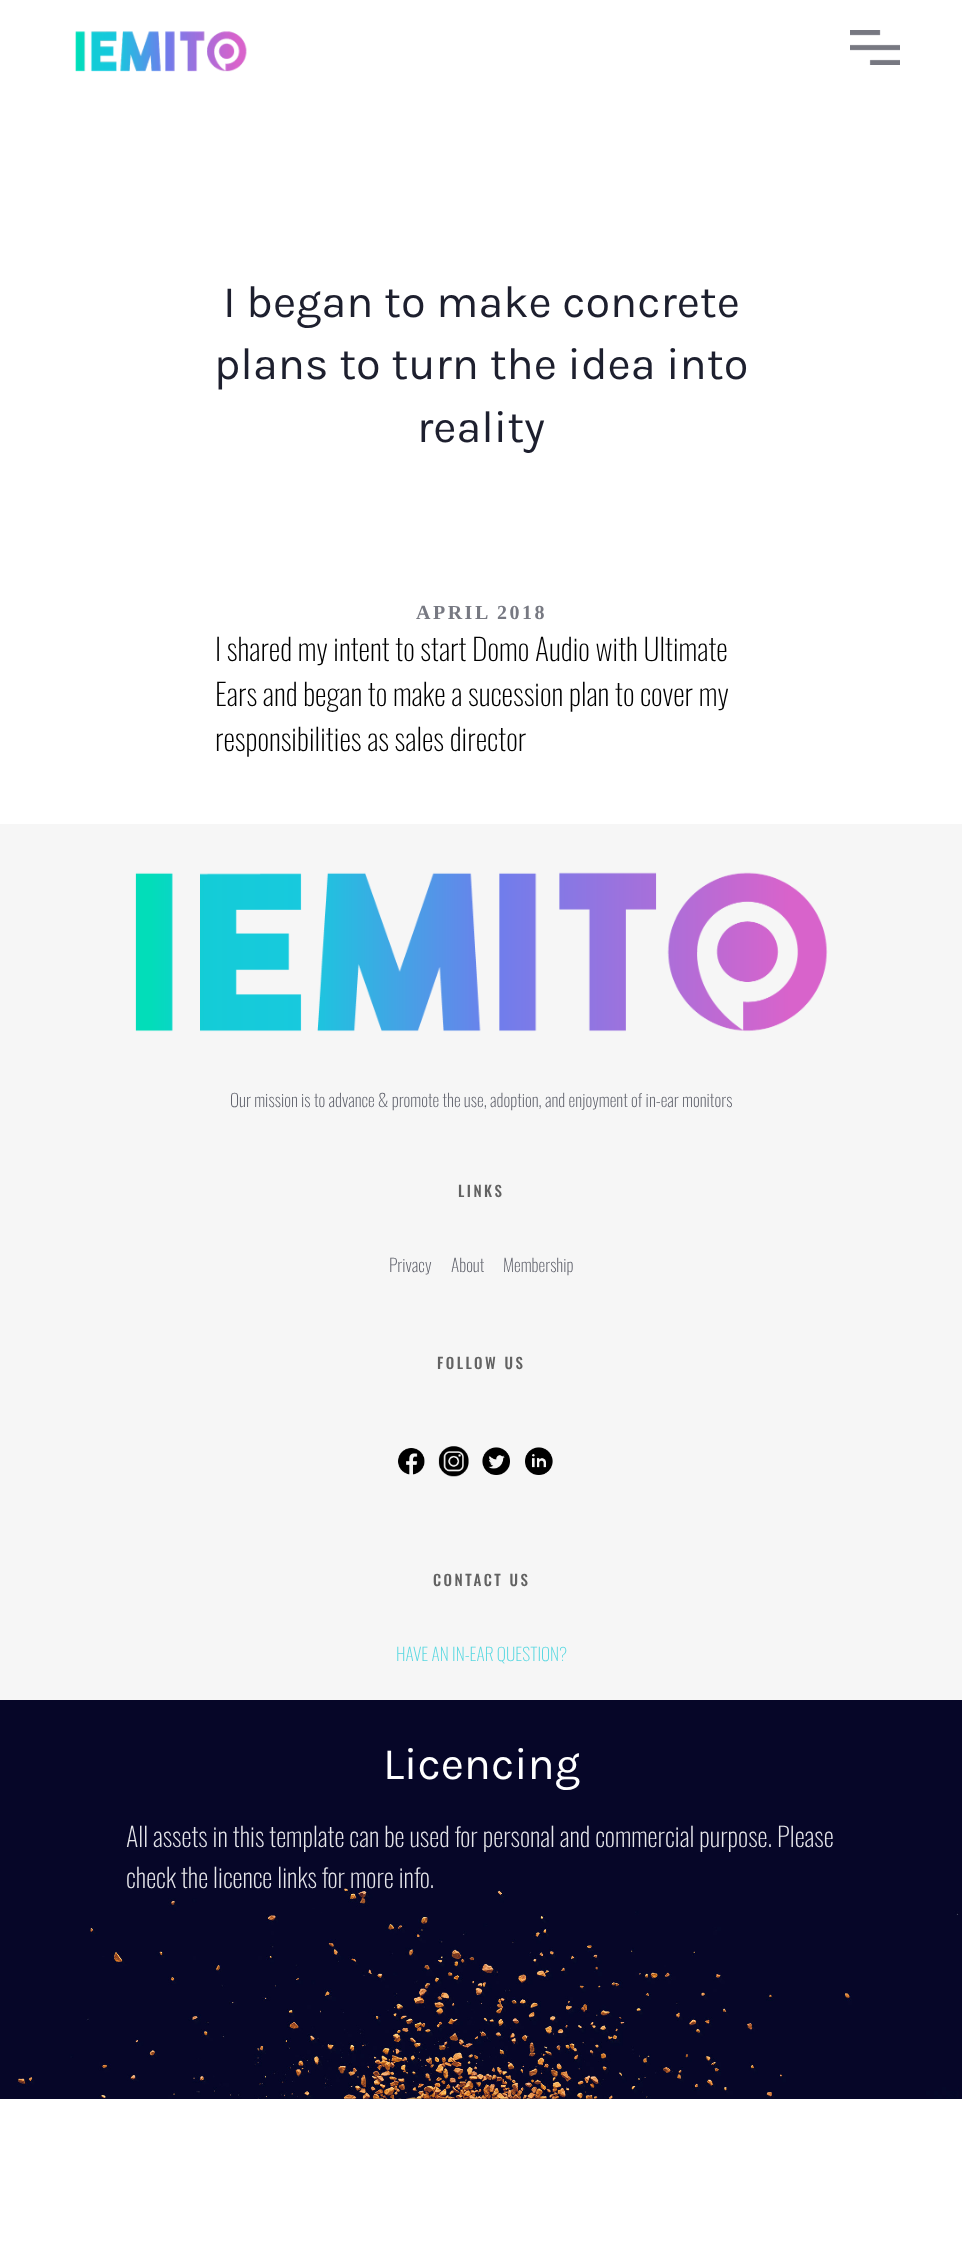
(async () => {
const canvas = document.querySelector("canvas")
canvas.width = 962
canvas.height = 2253
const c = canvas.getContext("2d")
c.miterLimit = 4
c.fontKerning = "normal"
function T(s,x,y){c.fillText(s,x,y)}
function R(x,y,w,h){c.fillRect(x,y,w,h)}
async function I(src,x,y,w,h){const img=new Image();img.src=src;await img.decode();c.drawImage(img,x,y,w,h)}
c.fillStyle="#fff"
R(0,0,962,2253)
await I("1.png",75,31,172,41)
await I("2.png",850,30,50,35)
c.font="45px Karla"
c.fillStyle="#1d1f2e"
T("I began to make concrete",223,317)
T("plans to turn the idea into",214,379)
T("reality",417,442)
c.letterSpacing="2.5px"
c.font="bold 20px Liberation Serif"
c.fillStyle="#777982"
T("APRIL 2018",416,619)
c.letterSpacing="0px"
c.font="200 30px Oswald"
c.fillStyle="#000"
T("I shared my intent to start Domo Audio with Ultimate",215,661)
T("Ears and began to make a sucession plan to cover my",215,706)
T("responsibilities as sales director",215,751)
c.fillStyle="#f6f6f6"
R(0,824,962,876)
await I("3.png",135,872,693,160)
c.font="200 17.5px Oswald"
c.fillStyle="#5e606a"
T("Our mission is to advance & promote the use, adoption, and enjoyment of in-ear monitors",230,1107)
c.letterSpacing="2.5px"
c.font="500 15px Oswald"
c.fillStyle="#626262"
T("LINKS",458,1197)
c.letterSpacing="0px"
c.font="200 17.5px Oswald"
c.fillStyle="#5e606a"
T("Privacy",389,1272)
T("About",451,1272)
T("Membership",503,1272)
c.letterSpacing="2.5px"
c.font="500 15px Oswald"
c.fillStyle="#626262"
T("FOLLOW US",437,1369)
await I("4.png",398,1448,27,27)
await I("5.png",438,1446,31,31)
await I("6.png",482,1447,28,28)
await I("7.png",525,1447,28,28)
T("CONTACT US",433,1586)
c.letterSpacing="0px"
c.font="200 17.5px Oswald"
c.fillStyle="#59d8e1"
T("HAVE AN IN-EAR QUESTION?",396,1661)
c.fillStyle="#060628"
R(0,1700,962,399)
await I("8.png",17,1886,942,213)
c.font="45px Karla"
c.fillStyle="#fff"
T("Licencing",383,1779)
c.font="200 26.25px Oswald"
c.fillStyle="#e6e6ea"
T("All assets in this template can be used for personal and commercial purpose. Please",126,1847)
T("check the licence links for more info.",126,1888)
})()
